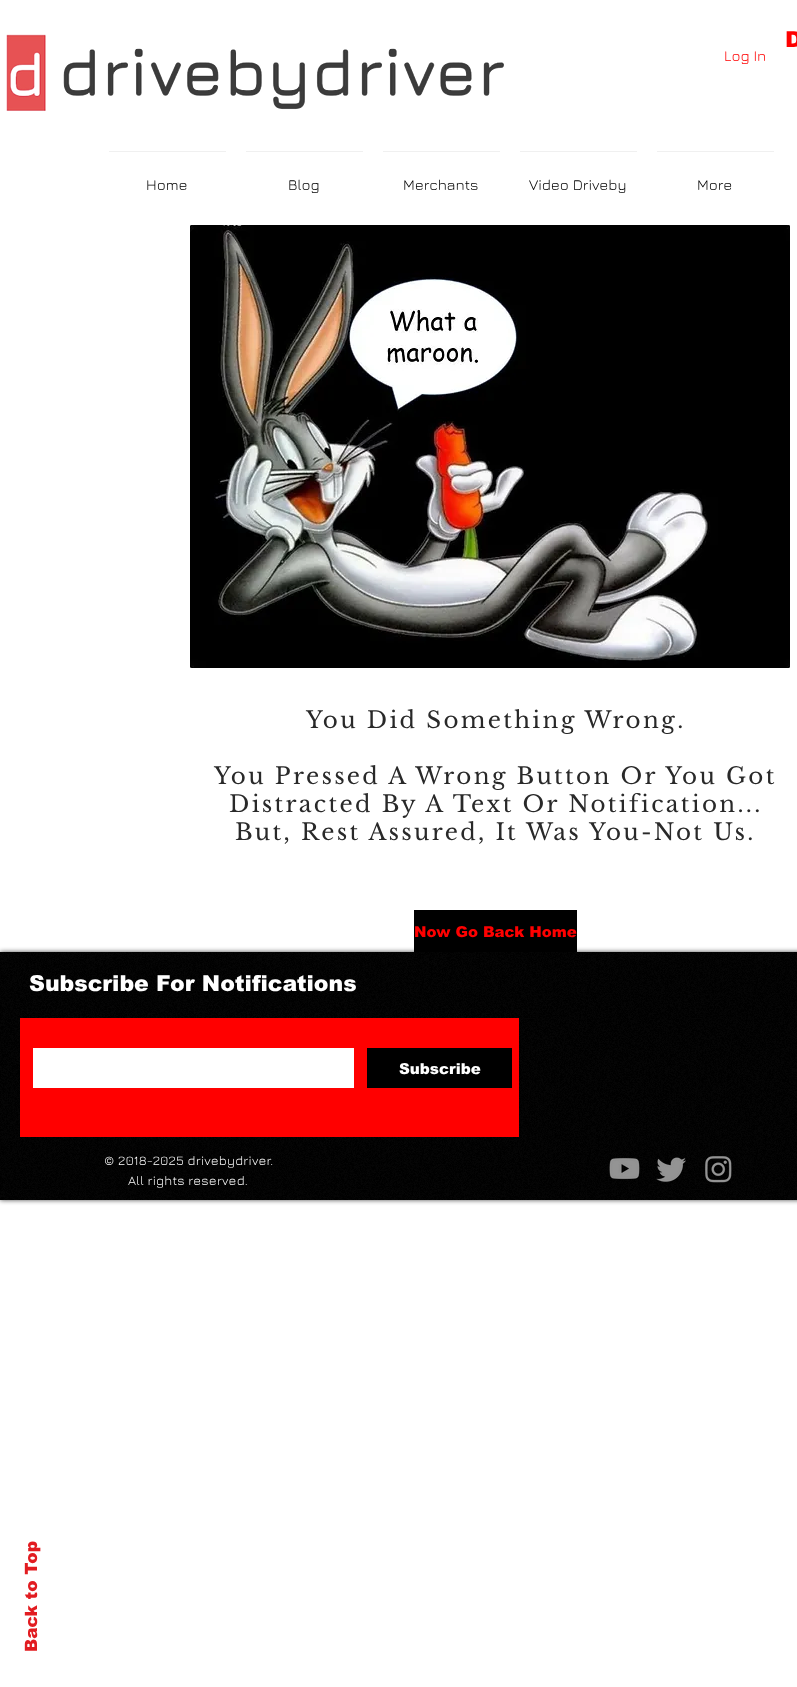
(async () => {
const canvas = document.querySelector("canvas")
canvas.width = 797
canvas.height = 1687
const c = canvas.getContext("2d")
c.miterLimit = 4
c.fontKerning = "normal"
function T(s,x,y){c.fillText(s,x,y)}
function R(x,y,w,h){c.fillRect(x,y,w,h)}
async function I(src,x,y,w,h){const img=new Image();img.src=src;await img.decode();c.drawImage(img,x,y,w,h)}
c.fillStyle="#fff"
R(0,0,797,1687)
await I("1.png",6,34,498,77)
c.font="15px Jura"
c.fillStyle="#f00"
T("Log In",724,61)
c.font="900 22px arial"
T("D",785,47)
c.fillStyle="#f0f0f0"
R(109,151,117,1)
c.font="15px Jura"
c.fillStyle="#000"
T("Home",146,190)
c.fillStyle="#f0f0f0"
R(246,151,117,1)
c.fillStyle="#000"
T("Blog",288,190)
c.fillStyle="#f0f0f0"
R(383,151,117,1)
c.fillStyle="#000"
T("Merchants",403,190)
c.fillStyle="#f0f0f0"
R(520,151,117,1)
c.fillStyle="#000"
T("Video Driveby",529,190)
c.fillStyle="#f0f0f0"
R(657,151,117,1)
c.fillStyle="#000"
T("More",697,190)
await I("2.png",190,225,600,443)
c.letterSpacing="2.3px"
c.font="23px Libre Baskerville"
c.fillStyle="#292929"
T("You Did Something Wrong.",306,728)
T("You Pressed A Wrong Button Or You Got",214,784)
T("Distracted By A Text Or Notification...",229,812)
T("But, Rest Assured, It Was You-Not Us.",235,840)
c.fillStyle="#000"
R(414,910,163,42)
c.letterSpacing="0px"
c.font="900 15px arial"
c.fillStyle="#f00"
T("Now Go Back Home",414,937)
c.fillStyle="#000000b3"
c.filter="blur(2.5px)"
c.beginPath()
c.rect(0,952,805,248)
c.fill()
c.filter="none"
c.fillStyle="#000"
R(0,952,797,248)
await I("3.png",0,952,797,248)
c.font="900 22px arial"
c.fillStyle="#fff"
T("Subscribe For Notifications",29,991)
c.fillStyle="#f00"
R(20,1018,499,119)
c.fillStyle="#fff"
R(33,1048,321,40)
c.fillStyle="#000"
R(367,1048,145,40)
c.font="900 15px arial"
c.fillStyle="#fff"
T("Subscribe",399,1074)
c.letterSpacing="0.25px"
c.font="13px Jura"
T("© 2018-2025 drivebydriver.",104,1165)
T("All rights reserved.",128,1185)
await I("4.png",609,1158,31,22)
await I("5.png",656,1157,30,25)
await I("6.png",705,1156,27,27)
c.letterSpacing="0px"
c.font="900 17px arial"
c.fillStyle="#e21c21"
c.save()
c.translate(37,1652)
c.rotate(-90 * Math.PI / 180)
c.fillText("Back to Top",0,0)
c.restore()
})()
